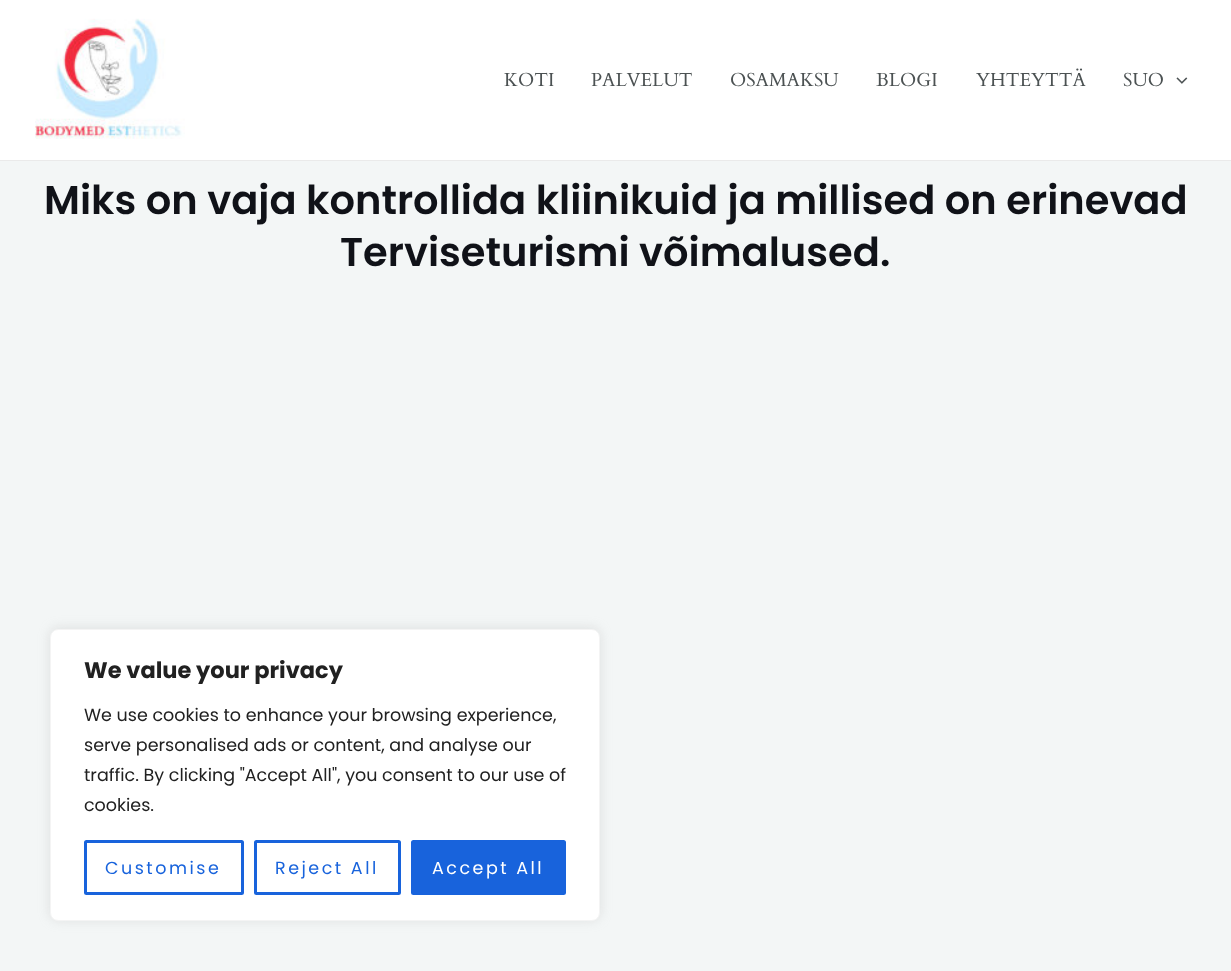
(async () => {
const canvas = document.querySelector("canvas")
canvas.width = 1231
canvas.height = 971
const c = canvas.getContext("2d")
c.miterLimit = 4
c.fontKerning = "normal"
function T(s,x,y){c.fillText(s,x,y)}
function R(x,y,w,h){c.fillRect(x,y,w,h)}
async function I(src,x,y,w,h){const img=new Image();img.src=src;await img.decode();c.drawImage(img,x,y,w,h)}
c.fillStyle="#f3f6f6"
R(0,0,1231,971)
c.fillStyle="#fff"
R(0,0,1231,160)
c.fillStyle="#eaeaea"
R(0,160,1231,1)
await I("1.png",35,18,150,121)
c.font="18.75px Cardo"
c.fillStyle="#4c5253"
T("KOTI",504,86)
T("PALVELUT",591,86)
T("OSAMAKSU",730,86)
T("BLOGI",876,86)
T("YHTEYTTÄ",976,86)
T("SUO",1123,86)
await I("2.png",1176,77,12,7)
c.font="600 40px Poppins"
c.fillStyle="#101218"
T("Miks on vaja kontrollida kliinikuid ja millised on erinevad",44,214)
T("Terviseturismi võimalused.",340,266)
c.fillStyle="#acabab4d"
c.filter="blur(6px)"
c.beginPath()
c.roundRect(50,628,550,292,8)
c.fill()
c.filter="none"
c.fillStyle="#fff"
c.beginPath()
c.roundRect(50.5,629.5,549,291,7.5)
c.fill()
c.strokeStyle="#f4f4f4"
c.stroke()
c.font="bold 22.5px Poppins"
c.fillStyle="#212121"
T("We value your privacy",84,678)
c.font="17.5px Poppins"
T("We use cookies to enhance your browsing experience,",84,721)
T("serve personalised ads or content, and analyse our",84,751)
T("traffic. By clicking \"Accept All\", you consent to our use of",84,781)
T("cookies.",84,811)
c.beginPath()
c.roundRect(85.5,841.5,157,52,1)
c.strokeStyle="#1863dc"
c.lineWidth=3
c.stroke()
c.letterSpacing="2.5px"
c.fillStyle="#1863dc"
T("Customise",105,874)
c.beginPath()
c.roundRect(255.5,841.5,144,52,1)
c.stroke()
T("Reject All",275,874)
c.beginPath()
c.roundRect(412.5,841.5,152,52,1)
c.fill()
c.stroke()
c.fillStyle="#fff"
T("Accept All",432,874)
})()
